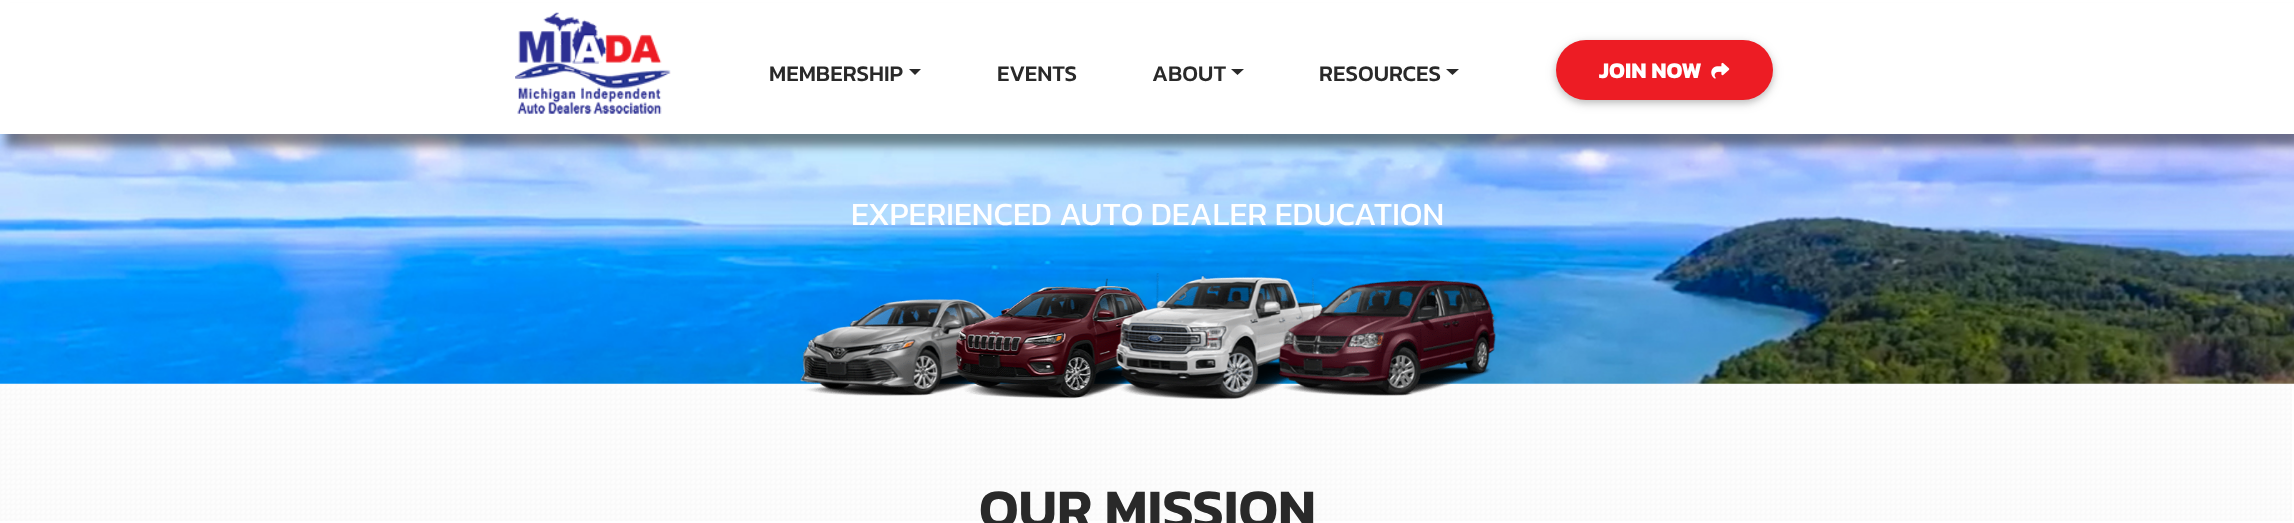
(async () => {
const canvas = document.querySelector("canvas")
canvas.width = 2294
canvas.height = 523
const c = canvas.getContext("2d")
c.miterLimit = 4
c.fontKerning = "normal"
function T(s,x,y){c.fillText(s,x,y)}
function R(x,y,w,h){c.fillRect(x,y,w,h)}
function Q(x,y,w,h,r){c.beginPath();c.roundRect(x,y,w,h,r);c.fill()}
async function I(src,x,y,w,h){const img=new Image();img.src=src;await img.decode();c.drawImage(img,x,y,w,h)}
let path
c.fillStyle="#fff"
R(0,0,2294,523)
await I("3.png",0,134,2294,250)
c.fillStyle="#00000073"
c.filter="blur(5px)"
c.beginPath()
c.rect(6,13,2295,133)
c.fill()
c.filter="none"
c.fillStyle="#fff"
R(0,3,2294,131)
await I("1.png",515,12,156,102)
c.font="500 22.5px Kanit"
c.fillStyle="#292929"
T("MEMBERSHIP",769,81)
path = new Path2D("M909 69h12l-6 6z")
c.fill(path)
T("EVENTS",997,81)
T("ABOUT",1152,81)
path = new Path2D("M1231 69h13l-6.5 6z")
c.fill(path)
T("RESOURCES",1319,81)
path = new Path2D("M1446 69h13l-6.5 6z")
c.fill(path)
c.fillStyle="#0000001f"
c.filter="blur(6px)"
c.beginPath()
c.roundRect(1556,43,217,60,30)
c.fill()
c.filter="none"
c.fillStyle="#00000029"
c.filter="blur(3px)"
c.beginPath()
c.roundRect(1556,43,217,60,30)
c.fill()
c.filter="none"
c.fillStyle="#ed1c24"
Q(1556,40,217,60,30)
c.font="bold 22.5px Kanit"
c.fillStyle="#fff"
T("JOIN NOW",1599,78)
await I("2.png",1711,62,19,17)
c.font="32.5px Kanit"
T("EXPERIENCED AUTO DEALER EDUCATION",851,225)
await I("4.png",800,273,696,127)
await I("5.png",0,384,2292,137)
c.font="600 56.25px Kanit"
c.fillStyle="#292929"
T("OUR MISSION",979,528)
})()
